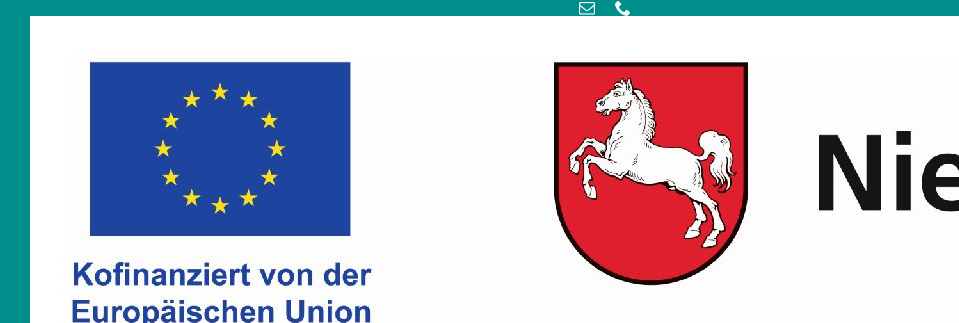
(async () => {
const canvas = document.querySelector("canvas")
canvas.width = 959
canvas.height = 323
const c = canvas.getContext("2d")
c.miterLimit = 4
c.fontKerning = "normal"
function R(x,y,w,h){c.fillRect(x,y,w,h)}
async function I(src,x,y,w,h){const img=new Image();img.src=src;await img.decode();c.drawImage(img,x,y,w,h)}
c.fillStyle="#008e8b"
R(0,0,959,323)
await I("1.png",579,2,16,13)
await I("2.png",615,1,15,15)
await I("3.png",30,16,929,307)
})()
